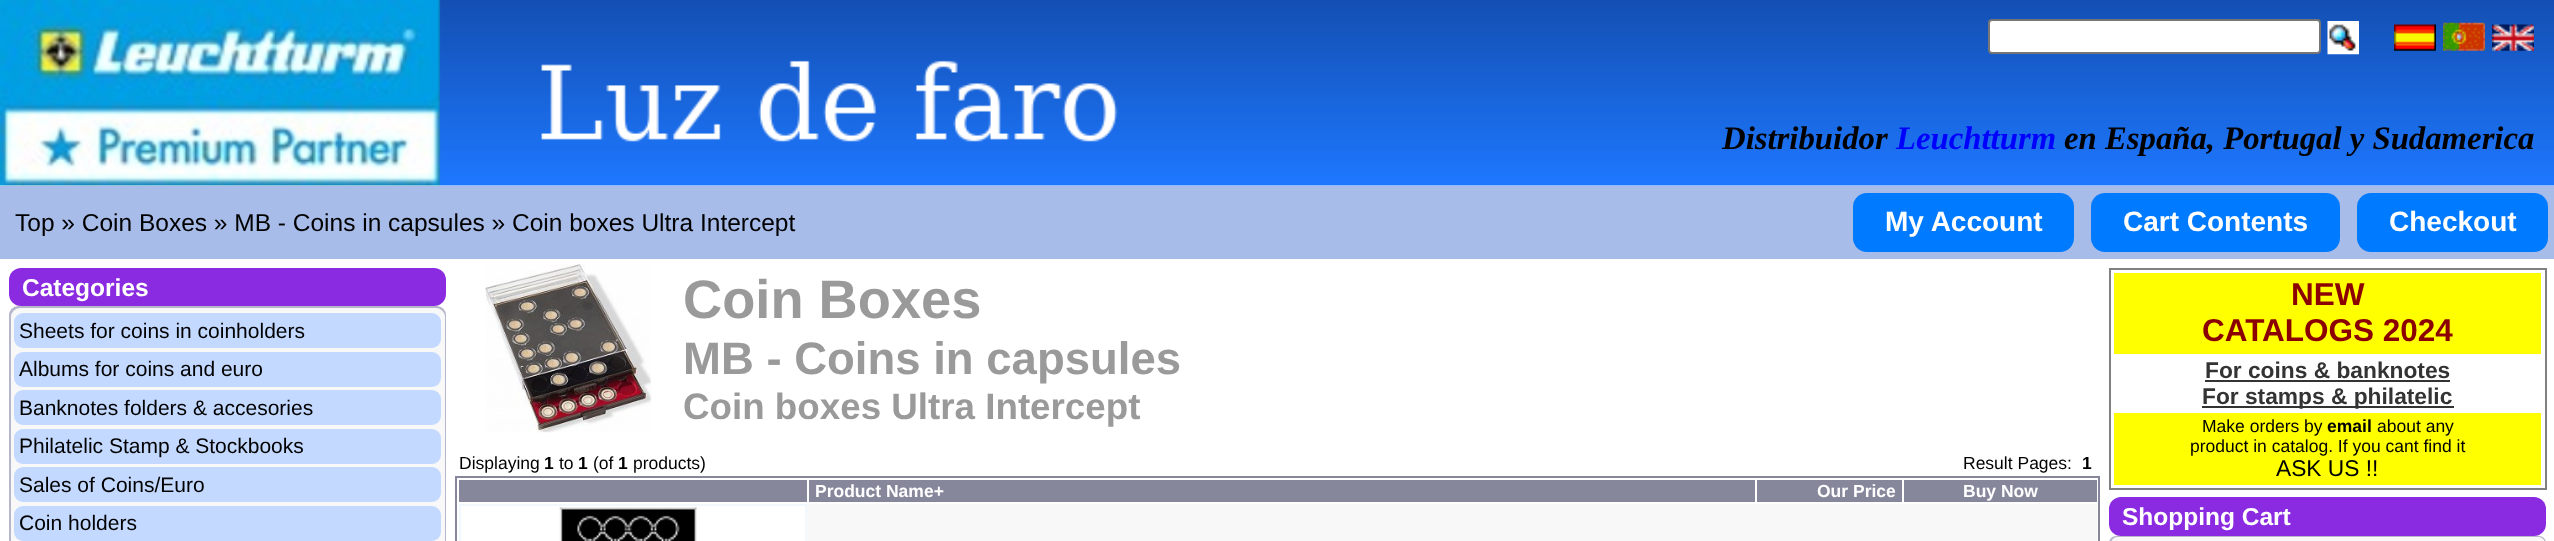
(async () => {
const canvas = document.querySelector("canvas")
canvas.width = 2554
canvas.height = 541
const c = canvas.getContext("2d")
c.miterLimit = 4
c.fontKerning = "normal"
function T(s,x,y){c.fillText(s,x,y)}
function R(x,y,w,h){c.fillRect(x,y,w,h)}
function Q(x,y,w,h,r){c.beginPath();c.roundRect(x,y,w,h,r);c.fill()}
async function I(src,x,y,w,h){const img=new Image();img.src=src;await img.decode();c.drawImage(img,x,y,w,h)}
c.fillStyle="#fff"
R(0,0,2554,541)
await I("1.png",0,0,2554,186)
c.beginPath()
c.roundRect(1989,20,331,33,3)
c.fill()
c.strokeStyle="#767676"
c.lineWidth=2
c.stroke()
await I("2.png",2327,21,32,34)
await I("3.png",2394,24,42,27)
await I("4.png",2443,22,42,29)
await I("5.png",2492,24,42,27)
c.font="italic bold 32.75px Liberation Serif"
c.fillStyle="#000"
T("Distribuidor",1722,149)
c.fillStyle="#00f"
T("Leuchtturm",1896,149)
c.fillStyle="#000"
T("en España, Portugal y Sudamerica",2064,149)
c.fillStyle="#a7bce9"
R(0,186,2554,73)
c.font="24.5px Liberation Sans"
c.fillStyle="#000"
T("Top » Coin Boxes » MB - Coins in capsules » Coin boxes Ultra Intercept",15,231)
c.fillStyle="#007bff"
Q(1853,193,221,59,14)
c.font="bold 28px Liberation Sans"
c.fillStyle="#fff"
T("My Account",1885,231)
c.fillStyle="#007bff"
Q(2091,193,249,59,14)
c.fillStyle="#fff"
T("Cart Contents",2123,231)
c.fillStyle="#007bff"
Q(2357,193,191,59,14)
c.fillStyle="#fff"
T("Checkout",2389,231)
c.fillStyle="#8a2be2"
Q(9,268,437,38,12)
c.font="bold 24.5px Liberation Sans"
c.fillStyle="#fff"
T("Categories",22,296)
c.fillStyle="#b6b7cb"
Q(9,306,437,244,9)
c.fillStyle="#f8f8f9"
Q(11,308,434,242,9)
Q(11,310,434,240,9)
c.fillStyle="#c3d9ff"
Q(14,313,427,35,9)
c.font="21px Liberation Sans"
c.fillStyle="#000"
T("Sheets for coins in coinholders",19,338)
c.fillStyle="#c3d9ff"
Q(14,352,427,35,9)
c.fillStyle="#000"
T("Albums for coins and euro",19,376)
c.fillStyle="#c3d9ff"
Q(14,390,427,35,9)
c.fillStyle="#000"
T("Banknotes folders & accesories",19,415)
c.fillStyle="#c3d9ff"
Q(14,429,427,35,9)
c.fillStyle="#000"
T("Philatelic Stamp & Stockbooks",19,453)
c.fillStyle="#c3d9ff"
Q(14,467,427,35,9)
c.fillStyle="#000"
T("Sales of Coins/Euro",19,492)
c.fillStyle="#c3d9ff"
Q(14,506,427,35,9)
c.fillStyle="#000"
T("Coin holders",19,530)
await I("6.png",485,264,167,169)
c.font="bold 54.25px Liberation Sans"
c.fillStyle="#9a9a9a"
T("Coin Boxes",683,318)
c.font="bold 45.5px Liberation Sans"
T("MB - Coins in capsules",683,374)
c.font="bold 36.75px Liberation Sans"
T("Coin boxes Ultra Intercept",683,419)
c.font="17.5px Liberation Sans"
c.fillStyle="#000"
T("Displaying",459,469)
c.font="bold 17.5px Liberation Sans"
T("1",544,469)
c.font="17.5px Liberation Sans"
T("to",559,469)
c.font="bold 17.5px Liberation Sans"
T("1",578,469)
c.font="17.5px Liberation Sans"
T("(of",593,469)
c.font="bold 17.5px Liberation Sans"
T("1",618,469)
c.font="17.5px Liberation Sans"
T("products)",633,469)
T("Result Pages:",1963,469)
c.font="bold 17.5px Liberation Sans"
T("1",2082,469)
c.strokeStyle="#86879b"
c.strokeRect(456,477,1643,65)
c.fillStyle="#86879b"
R(459,480,348,22)
R(809,480,946,22)
c.fillStyle="#fff"
T("Product Name+",815,497)
c.fillStyle="#86879b"
R(1757,480,145,22)
c.fillStyle="#fff"
T("Our Price",1817,497)
c.fillStyle="#86879b"
R(1904,480,193,22)
c.fillStyle="#fff"
T("Buy Now",1963,497)
c.fillStyle="#f8f8f9"
R(807,504,1290,37)
c.strokeStyle="#f1f9fe"
c.strokeRect(460,505,346,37)
await I("7.png",559,507,138,34)
c.fillStyle="#808080"
R(2109,268,437,2)
R(2545,268,2,222)
R(2109,488,437,2)
R(2109,268,2,222)
c.fillStyle="#ff0"
R(2114,273,427,81)
c.font="bold 31.5px Liberation Sans"
c.fillStyle="#8b0000"
T("NEW",2291,305)
T("CATALOGS 2024",2202,341)
c.font="bold 22.75px Liberation Sans"
c.fillStyle="#333"
T("For coins & banknotes",2205,378)
R(2205,380,245,2)
R(2202,406,252,2)
T("For stamps & philatelic",2202,404)
c.fillStyle="#ff0"
R(2114,413,427,72)
c.font="17.5px Liberation Sans"
c.fillStyle="#000"
T("Make orders by",2202,432)
c.font="bold 17.5px Liberation Sans"
T("email",2327,432)
c.font="17.5px Liberation Sans"
T("about any",2377,432)
T("product in catalog. If you cant find it",2190,452)
c.font="22.75px Liberation Sans"
T("ASK US !!",2276,476)
c.fillStyle="#8a2be2"
Q(2109,497,437,39,12)
c.font="bold 24.5px Liberation Sans"
c.fillStyle="#fff"
T("Shopping Cart",2122,525)
c.fillStyle="#b6b7cb"
Q(2109,536,437,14,9)
c.fillStyle="#f8f8f9"
Q(2111,537,434,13,9)
})()
